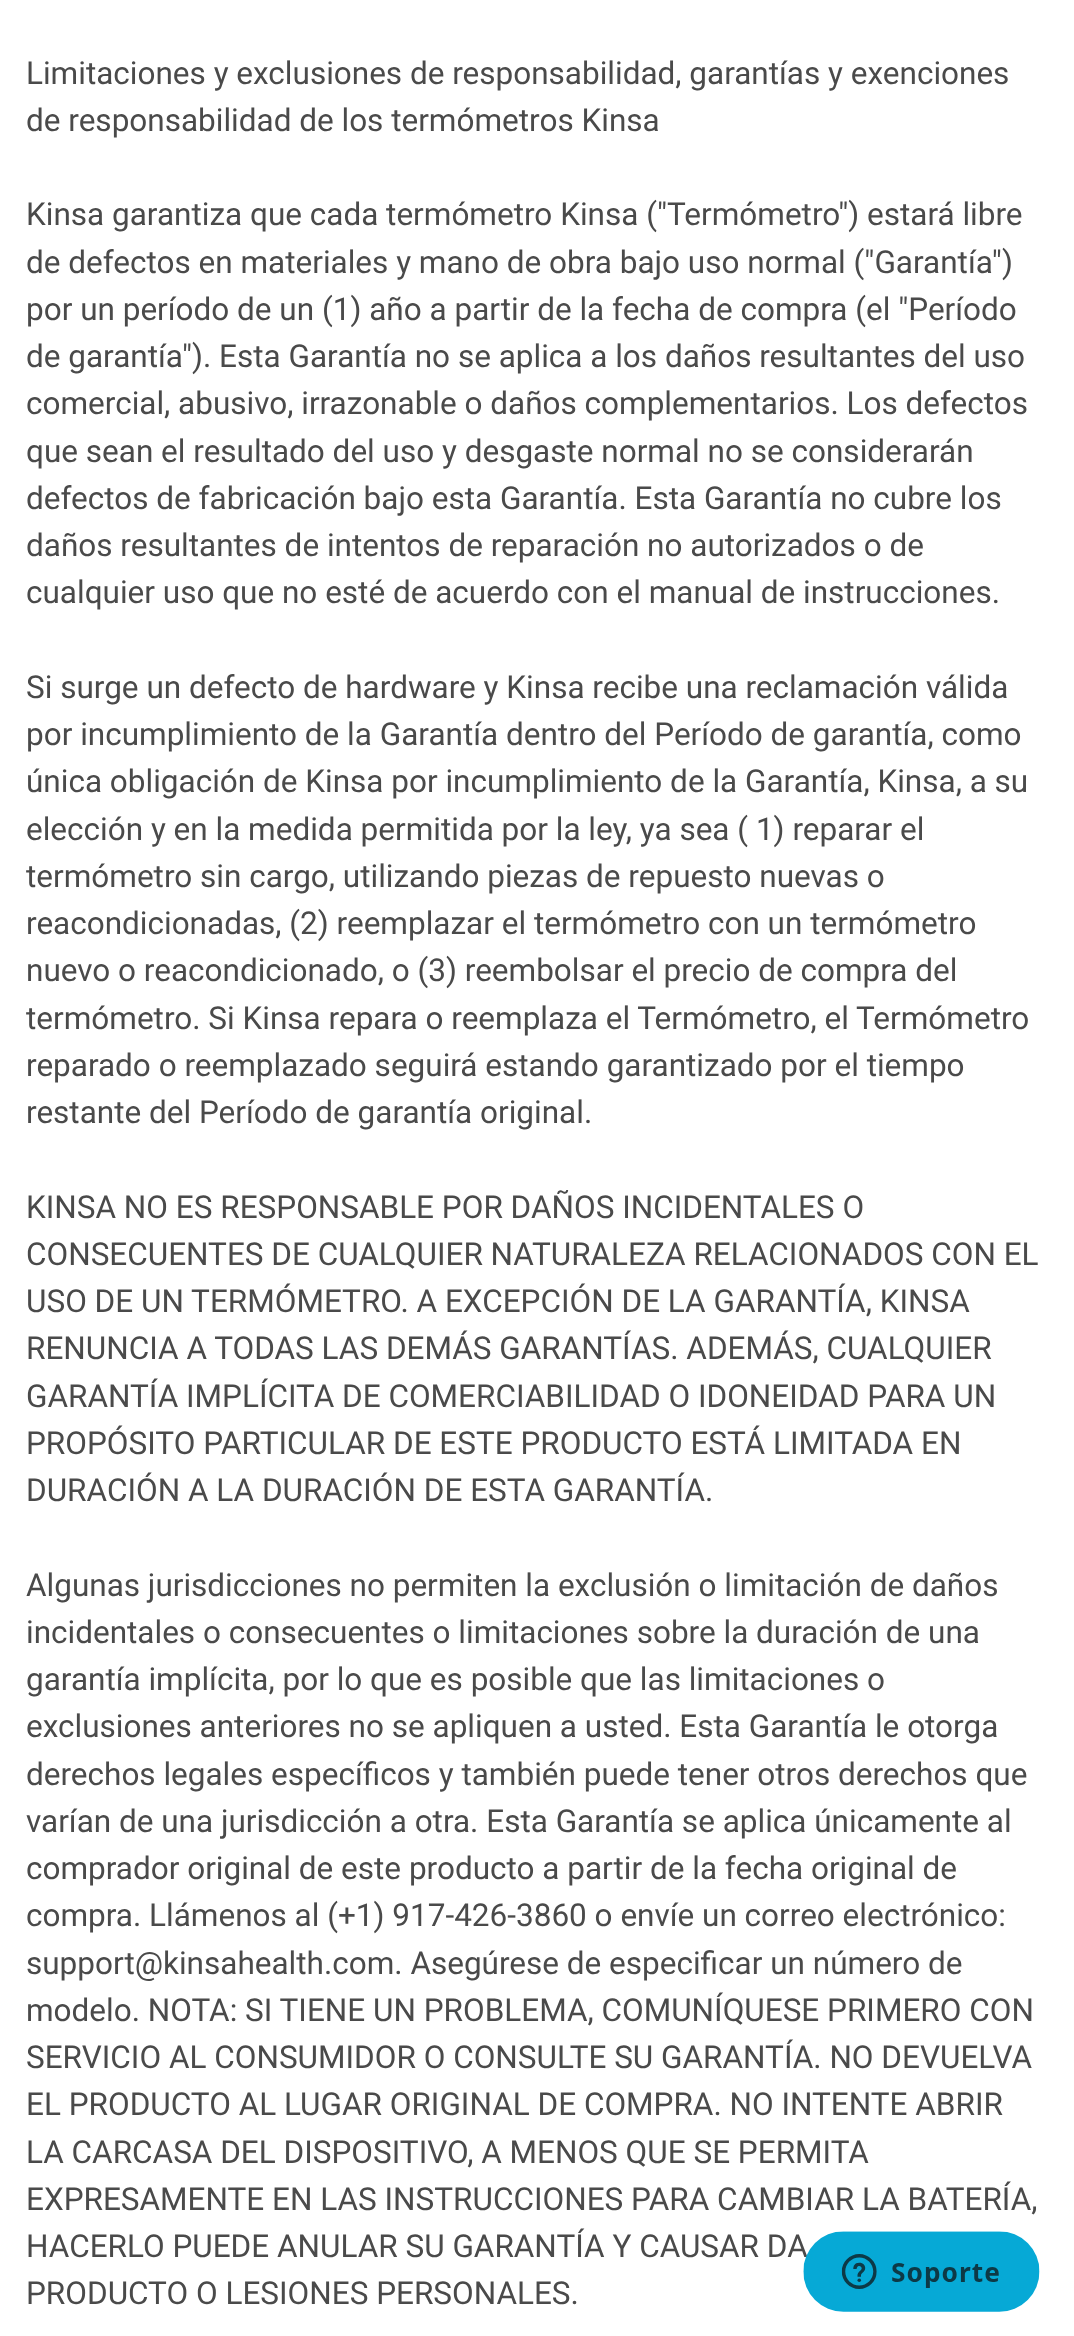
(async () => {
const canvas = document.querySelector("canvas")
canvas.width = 1074
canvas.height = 2336
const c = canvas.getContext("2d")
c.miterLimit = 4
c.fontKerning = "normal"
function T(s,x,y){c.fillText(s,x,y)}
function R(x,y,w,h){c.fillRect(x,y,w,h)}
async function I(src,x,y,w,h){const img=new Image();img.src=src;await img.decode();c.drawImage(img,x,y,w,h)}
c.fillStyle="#fff"
R(0,0,1074,2336)
c.font="31.5px Roboto"
c.fillStyle="#4a4a4a"
T("Limitaciones y exclusiones de responsabilidad, garantías y exenciones",26,84)
T("de responsabilidad de los termómetros Kinsa",26,131)
T("Kinsa garantiza que cada termómetro Kinsa (\"Termómetro\") estará libre",26,225)
T("de defectos en materiales y mano de obra bajo uso normal (\"Garantía\")",26,273)
T("por un período de un (1) año a partir de la fecha de compra (el \"Período",26,320)
T("de garantía\"). Esta Garantía no se aplica a los daños resultantes del uso",26,367)
T("comercial, abusivo, irrazonable o daños complementarios. Los defectos",26,414)
T("que sean el resultado del uso y desgaste normal no se considerarán",26,462)
T("defectos de fabricación bajo esta Garantía. Esta Garantía no cubre los",26,509)
T("daños resultantes de intentos de reparación no autorizados o de",26,556)
T("cualquier uso que no esté de acuerdo con el manual de instrucciones.",26,603)
T("Si surge un defecto de hardware y Kinsa recibe una reclamación válida",26,698)
T("por incumplimiento de la Garantía dentro del Período de garantía, como",26,745)
T("única obligación de Kinsa por incumplimiento de la Garantía, Kinsa, a su",26,792)
T("elección y en la medida permitida por la ley, ya sea ( 1) reparar el",26,840)
T("termómetro sin cargo, utilizando piezas de repuesto nuevas o",26,887)
T("reacondicionadas, (2) reemplazar el termómetro con un termómetro",26,934)
T("nuevo o reacondicionado, o (3) reembolsar el precio de compra del",26,981)
T("termómetro. Si Kinsa repara o reemplaza el Termómetro, el Termómetro",26,1029)
T("reparado o reemplazado seguirá estando garantizado por el tiempo",26,1076)
T("restante del Período de garantía original.",26,1123)
T("KINSA NO ES RESPONSABLE POR DAÑOS INCIDENTALES O",26,1218)
T("CONSECUENTES DE CUALQUIER NATURALEZA RELACIONADOS CON EL",26,1265)
T("USO DE UN TERMÓMETRO. A EXCEPCIÓN DE LA GARANTÍA, KINSA",26,1312)
T("RENUNCIA A TODAS LAS DEMÁS GARANTÍAS. ADEMÁS, CUALQUIER",26,1359)
T("GARANTÍA IMPLÍCITA DE COMERCIABILIDAD O IDONEIDAD PARA UN",26,1407)
T("PROPÓSITO PARTICULAR DE ESTE PRODUCTO ESTÁ LIMITADA EN",26,1454)
T("DURACIÓN A LA DURACIÓN DE ESTA GARANTÍA.",26,1501)
T("Algunas jurisdicciones no permiten la exclusión o limitación de daños",26,1596)
T("incidentales o consecuentes o limitaciones sobre la duración de una",26,1643)
T("garantía implícita, por lo que es posible que las limitaciones o",26,1690)
T("exclusiones anteriores no se apliquen a usted. Esta Garantía le otorga",26,1737)
T("derechos legales específicos y también puede tener otros derechos que",26,1785)
T("varían de una jurisdicción a otra. Esta Garantía se aplica únicamente al",26,1832)
T("comprador original de este producto a partir de la fecha original de",26,1879)
T("compra. Llámenos al (+1) 917-426-3860 o envíe un correo electrónico:",26,1926)
T("support@kinsahealth.com. Asegúrese de especificar un número de",26,1974)
T("modelo. NOTA: SI TIENE UN PROBLEMA, COMUNÍQUESE PRIMERO CON",26,2021)
T("SERVICIO AL CONSUMIDOR O CONSULTE SU GARANTÍA. NO DEVUELVA",26,2068)
T("EL PRODUCTO AL LUGAR ORIGINAL DE COMPRA. NO INTENTE ABRIR",26,2115)
T("LA CARCASA DEL DISPOSITIVO, A MENOS QUE SE PERMITA",26,2163)
T("EXPRESAMENTE EN LAS INSTRUCCIONES PARA CAMBIAR LA BATERÍA,",26,2210)
T("HACERLO PUEDE ANULAR SU GARANTÍA Y CAUSAR DA",26,2257)
T("PRODUCTO O LESIONES PERSONALES.",26,2304)
await I("1.png",803,2231,237,81)
})()
